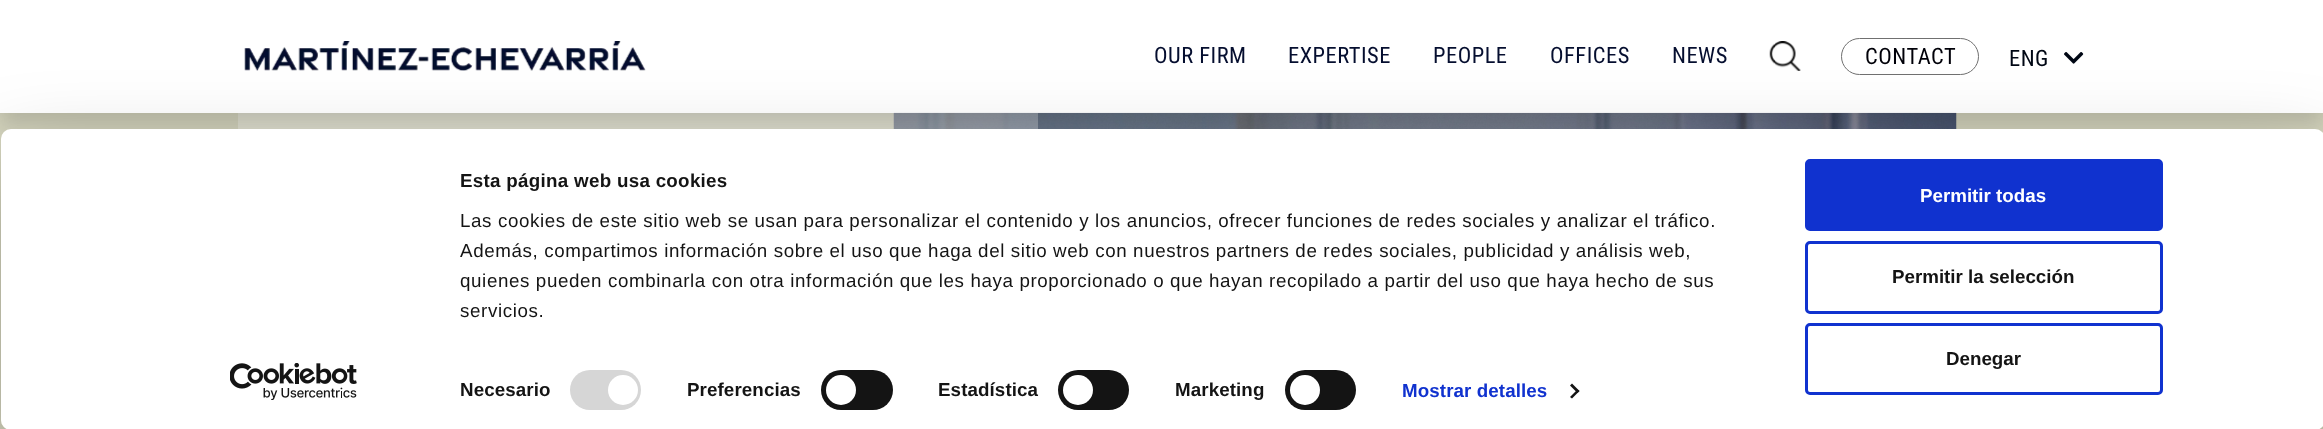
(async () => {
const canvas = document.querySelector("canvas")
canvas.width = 2323
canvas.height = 429
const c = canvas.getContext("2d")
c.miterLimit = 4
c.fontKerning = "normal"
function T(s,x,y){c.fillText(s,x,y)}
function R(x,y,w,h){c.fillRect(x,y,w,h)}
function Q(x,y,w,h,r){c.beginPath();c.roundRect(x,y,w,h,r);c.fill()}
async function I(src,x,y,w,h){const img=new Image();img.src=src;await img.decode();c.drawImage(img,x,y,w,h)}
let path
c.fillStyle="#fff"
R(0,0,2323,429)
c.fillStyle="#d6d6bf"
R(0,113,2323,316)
await I("4.png",893,112,1064,17)
c.fillStyle="#ffffff4d"
R(238,113,800,16)
c.save()
path = new Path2D("M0 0h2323v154h-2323zm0 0h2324v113h-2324z")
c.clip(path,"evenodd")
c.fillStyle="#00000026"
c.filter="blur(10px)"
c.beginPath()
c.rect(0,10,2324,113)
c.fill()
c.filter="none"
c.restore()
c.fillStyle="#ffffffe0"
R(0,112,2323,1)
await I("1.png",244,41,402,30)
c.letterSpacing="0.5px"
c.font="22.5px Roboto Condensed"
c.fillStyle="#050e2f"
T("OUR FIRM",1154,63)
T("EXPERTISE",1288,63)
T("PEOPLE",1433,63)
T("OFFICES",1550,63)
T("NEWS",1672,63)
await I("2.png",1769,41,32,30)
c.beginPath()
c.roundRect(1841.5,38.5,137,36,18)
c.strokeStyle="#707070"
c.stroke()
c.fillStyle="#000008"
T("CONTACT",1865,64)
c.fillStyle="#000714"
T("ENG",2009,66)
await I("3.png",2064,52,20,12)
c.save()
path = new Path2D("M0 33h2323v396h-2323zm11 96h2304c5.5 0 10 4.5 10 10v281c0 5.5-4.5 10-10 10h-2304c-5.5 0-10-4.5-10-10v-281c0-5.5 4.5-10 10-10z")
c.clip(path,"evenodd")
c.fillStyle="#0000004d"
c.filter="blur(44px)"
c.beginPath()
c.roundRect(1,166,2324,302,10)
c.fill()
c.filter="none"
c.restore()
c.fillStyle="#fff"
Q(1,129,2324,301,10)
c.letterSpacing="0.3px"
c.font="bold 18.75px Liberation Sans"
c.fillStyle="#141414"
T("Esta página web usa cookies",460,187)
c.letterSpacing="0.62px"
c.font="18.75px Liberation Sans"
T("Las cookies de este sitio web se usan para personalizar el contenido y los anuncios, ofrecer funciones de redes sociales y analizar el tráfico.",460,227)
T("Además, compartimos información sobre el uso que haga del sitio web con nuestros partners de redes sociales, publicidad y análisis web,",460,257)
T("quienes pueden combinarla con otra información que les haya proporcionado o que hayan recopilado a partir del uso que haya hecho de sus",460,287)
T("servicios.",460,317)
c.letterSpacing="0.1px"
c.font="bold 18.75px Liberation Sans"
T("Necesario",460,396)
c.fillStyle="#d6d6d6"
Q(570,370,71,40,20)
c.fillStyle="#fff"
c.beginPath()
c.arc(623,390,15,0,7)
c.fill()
c.fillStyle="#141414"
T("Preferencias",687,396)
Q(821,370,72,40,20)
c.fillStyle="#fff"
c.beginPath()
c.arc(841,390,15,0,7)
c.fill()
c.fillStyle="#141414"
T("Estadística",938,396)
Q(1058,370,71,40,20)
c.fillStyle="#fff"
c.beginPath()
c.arc(1078,390,15,0,7)
c.fill()
c.fillStyle="#141414"
T("Marketing",1175,396)
Q(1285,370,71,40,20)
c.fillStyle="#fff"
c.beginPath()
c.arc(1305,390,15,0,7)
c.fill()
c.fillStyle="#1032cf"
T("Mostrar detalles",1402,397)
c.fillStyle="#141414"
path = new Path2D("M1572 383.5l7.5 7.5l-2 2l-7.5-7.5z")
c.fill(path)
path = new Path2D("M1577.5 389.5l2 1.5l-7.5 7.5l-2-1.5z")
c.fill(path)
c.fillStyle="#1032cf"
c.beginPath()
c.roundRect(1806.5,160.5,355,69,3.5)
c.fill()
c.strokeStyle="#1032cf"
c.lineWidth=3
c.stroke()
c.letterSpacing="0px"
c.fillStyle="#fff"
T("Permitir todas",1920,202)
c.beginPath()
c.roundRect(1806.5,242.5,355,70,3.5)
c.stroke()
c.fillStyle="#141414"
T("Permitir la selección",1892,283)
c.beginPath()
c.roundRect(1806.5,324.5,355,69,3.5)
c.stroke()
T("Denegar",1946,365)
await I("5.png",230,363,127,37)
})()
